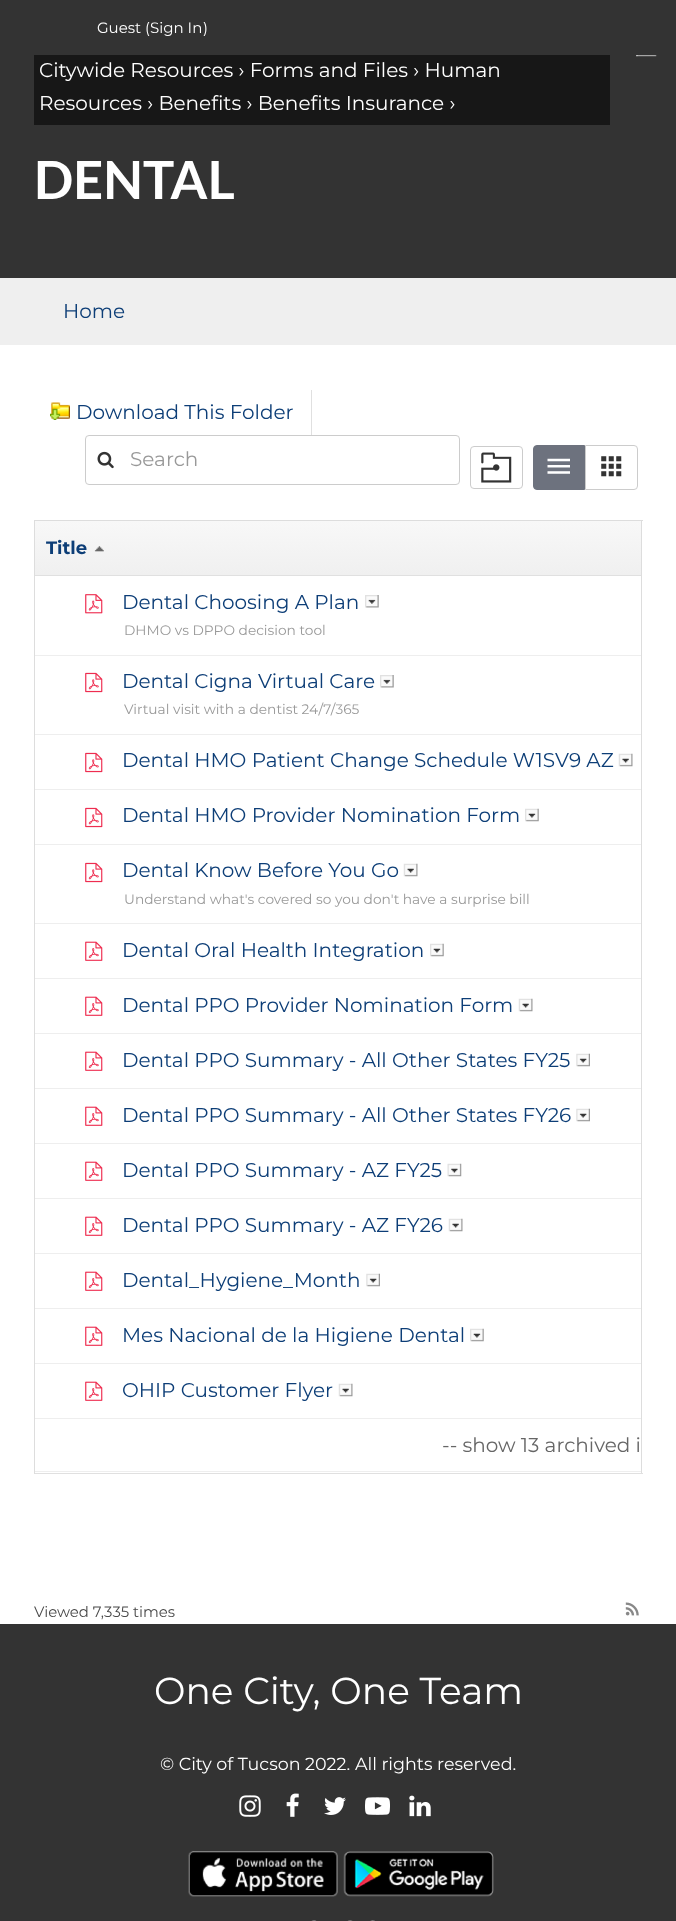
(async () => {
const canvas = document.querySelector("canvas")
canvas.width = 676
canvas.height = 1921
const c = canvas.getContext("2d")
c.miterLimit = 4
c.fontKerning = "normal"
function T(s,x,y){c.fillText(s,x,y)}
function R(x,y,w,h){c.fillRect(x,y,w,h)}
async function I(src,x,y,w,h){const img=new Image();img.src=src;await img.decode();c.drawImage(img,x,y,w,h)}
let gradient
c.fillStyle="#fff"
R(0,0,676,1921)
c.fillStyle="#333"
R(0,0,676,278)
c.font="15px Montserrat"
c.fillStyle="#fff"
T("Guest (Sign In",97,33)
T(")",203,33)
await I("1.png",636,55,21,2)
c.fillStyle="#171717"
R(34,55,576,70)
c.font="20px Montserrat"
c.fillStyle="#fff"
T("Citywide Resources › Forms and Files › Human",39,77)
T("Resources › Benefits › Benefits Insurance ›",39,110)
c.font="bold 52.5px Lato"
T("DENTAL",34,199)
c.fillStyle="#efefef"
R(0,278,676,67)
c.font="20px Montserrat"
c.fillStyle="#0d3e77"
T("Home",63,318)
c.fillStyle="#e0e0e0"
R(311,390,1,45)
await I("2.png",50,402,20,18)
c.fillStyle="#0d3e77"
T("Download This Folder",76,419)
c.beginPath()
c.roundRect(85.5,435.5,374,49,3.5)
c.strokeStyle="#ccc"
c.stroke()
await I("3.png",97,451,17,18)
c.fillStyle="#999"
T("Search",130,466)
c.beginPath()
c.roundRect(470.5,446.5,52,42,3.5)
c.stroke()
await I("4.png",481,452,31,31)
c.fillStyle="#6d727e"
c.beginPath()
c.roundRect(533.5,445.5,51,44,[3.5,0,0,3.5])
c.fill()
c.strokeStyle="#6d727e"
c.stroke()
await I("5.png",547,458,23,16)
c.beginPath()
c.roundRect(585.5,445.5,52,44,[0,3.5,3.5,0])
c.strokeStyle="#ccc"
c.stroke()
await I("6.png",601,456,21,21)
c.fillStyle="#ddd"
R(34,520,609,1)
R(641,520,1,954)
c.fillStyle="#e0e0e0"
R(34,1473,609,1)
c.fillStyle="#ddd"
R(34,520,1,954)
c.fillStyle="#e0e0e0"
R(35,575,606,1)
gradient = c.createLinearGradient(340,521,340,574)
gradient.addColorStop(0,"#f8f8f8")
gradient.addColorStop(1,"#f0f0f0")
c.fillStyle = gradient
R(35,521,606,53)
c.fillStyle="#f0f0f0"
R(35,574,606,1)
c.font="bold 18px Montserrat"
c.fillStyle="#0d3e77"
T("Title",46,554)
await I("7.png",94,546,10,6)
c.fillStyle="#eee"
R(35,655,606,1)
await I("8.png",85,594,18,20)
c.font="20px Montserrat"
c.fillStyle="#0d3e77"
T("Dental Choosing A Plan",122,609)
await I("9.png",365,595,14,13)
c.font="13.75px Montserrat"
c.fillStyle="#999"
T("DHMO vs DPPO decision tool",124,635)
c.fillStyle="#eee"
R(35,734,606,1)
await I("10.png",85,672,18,21)
c.font="20px Montserrat"
c.fillStyle="#0d3e77"
T("Dental Cigna Virtual Care",122,688)
await I("9.png",380,675,14,13)
c.font="13.75px Montserrat"
c.fillStyle="#999"
T("Virtual visit with a dentist 24/7/365",124,714)
c.fillStyle="#eee"
R(35,789,606,1)
await I("10.png",85,752,18,21)
c.font="20px Montserrat"
c.fillStyle="#0d3e77"
T("Dental HMO Patient Change Schedule W1SV9 AZ",122,767)
await I("11.png",618,753,15,14)
c.fillStyle="#eee"
R(35,844,606,1)
await I("10.png",85,807,18,21)
c.fillStyle="#0d3e77"
T("Dental HMO Provider Nomination Form",122,822)
await I("12.png",525,808,14,14)
c.fillStyle="#eee"
R(35,923,606,1)
await I("10.png",85,862,18,21)
c.fillStyle="#0d3e77"
T("Dental Know Before You Go",122,877)
await I("13.png",403,863,15,14)
c.font="13.75px Montserrat"
c.fillStyle="#999"
T("Understand what's covered so you don't have a surprise bill",124,904)
c.fillStyle="#eee"
R(35,978,606,1)
await I("14.png",85,941,18,20)
c.font="20px Montserrat"
c.fillStyle="#0d3e77"
T("Dental Oral Health Integration",122,957)
await I("12.png",430,943,14,14)
c.fillStyle="#eee"
R(35,1033,606,1)
await I("14.png",85,996,18,20)
c.fillStyle="#0d3e77"
T("Dental PPO Provider Nomination Form",122,1012)
await I("15.png",518,998,15,14)
c.fillStyle="#eee"
R(35,1088,606,1)
await I("14.png",85,1051,18,20)
c.fillStyle="#0d3e77"
T("Dental PPO Summary - All Other States FY25",122,1067)
await I("16.png",576,1053,14,14)
c.fillStyle="#eee"
R(35,1143,606,1)
await I("14.png",85,1106,18,20)
c.fillStyle="#0d3e77"
T("Dental PPO Summary - All Other States FY26",122,1122)
await I("16.png",576,1108,14,14)
c.fillStyle="#eee"
R(35,1198,606,1)
await I("14.png",85,1161,18,20)
c.fillStyle="#0d3e77"
T("Dental PPO Summary - AZ FY25",122,1177)
await I("17.png",447,1163,15,14)
c.fillStyle="#eee"
R(35,1253,606,1)
await I("14.png",85,1216,18,20)
c.fillStyle="#0d3e77"
T("Dental PPO Summary - AZ FY26",122,1232)
await I("11.png",448,1218,15,14)
c.fillStyle="#eee"
R(35,1308,606,1)
await I("14.png",85,1271,18,20)
c.fillStyle="#0d3e77"
T("Dental_Hygiene_Month",122,1287)
await I("16.png",366,1273,14,14)
c.fillStyle="#eee"
R(35,1363,606,1)
await I("14.png",85,1326,18,20)
c.fillStyle="#0d3e77"
T("Mes Nacional de la Higiene Dental",122,1342)
await I("12.png",470,1328,14,14)
c.fillStyle="#eee"
R(35,1418,606,1)
await I("14.png",85,1381,18,20)
c.fillStyle="#0d3e77"
T("OHIP Customer Flyer",122,1397)
await I("15.png",338,1383,15,14)
c.fillStyle="#eee"
R(35,1471,606,1)
c.fillStyle="#666"
T("-- show 13 archived i",442,1452)
c.font="14.9px Montserrat"
c.fillStyle="#4a4a4a"
T("Viewed 7,335 times",34,1617)
await I("18.png",625,1602,14,14)
c.fillStyle="#333"
R(0,1624,676,297)
c.font="37.5px Montserrat"
c.fillStyle="#fff"
T("One City, One Team",154,1704)
c.font="17.5px Montserrat"
T("© City of Tucson 2022. All rights reserved.",160,1770)
await I("19.png",239,1795,22,22)
await I("20.png",286,1793,13,24)
await I("21.png",324,1797,22,18)
await I("22.png",365,1797,25,18)
await I("23.png",409,1795,22,22)
await I("24.png",188,1851,150,46)
await I("25.png",343,1851,151,46)
await I("26.png",311,1920,64,1)
})()
